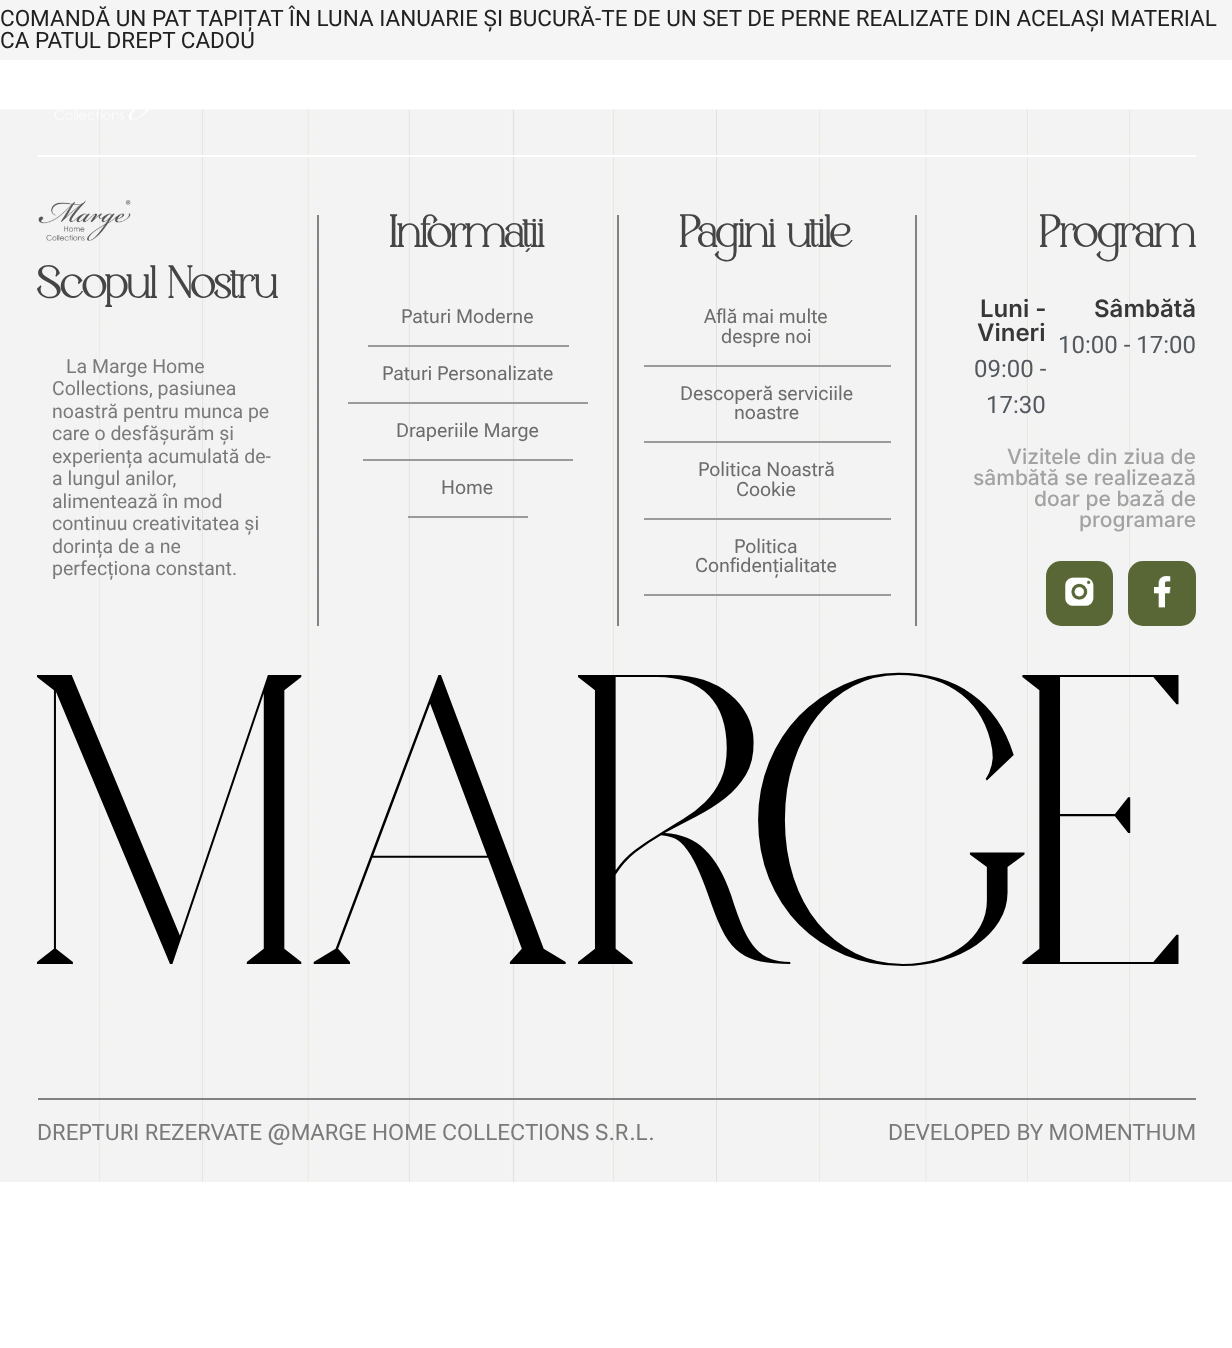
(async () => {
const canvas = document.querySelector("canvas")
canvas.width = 1232
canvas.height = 1348
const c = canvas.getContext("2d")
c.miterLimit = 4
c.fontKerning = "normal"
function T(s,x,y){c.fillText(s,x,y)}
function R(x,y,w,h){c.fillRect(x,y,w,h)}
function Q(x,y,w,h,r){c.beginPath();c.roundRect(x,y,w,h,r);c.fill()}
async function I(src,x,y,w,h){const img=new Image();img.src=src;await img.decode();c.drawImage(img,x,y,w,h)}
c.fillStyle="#fff"
R(0,0,1232,1348)
c.fillStyle="#f5f5f5"
R(0,0,1232,60)
c.font="22.5px Roboto"
c.fillStyle="#212121"
T("COMANDĂ UN PAT TAPIȚAT ÎN LUNA IANUARIE ȘI BUCURĂ-TE DE UN SET DE PERNE REALIZATE DIN ACELAȘI MATERIAL",0,26)
T("CA PATUL DREPT CADOU",0,48)
await I("2.png",0,109,1232,1073)
await I("1.png",54,60,96,60)
c.fillStyle="#fff"
R(38,155,1158,2)
await I("3.png",38,200,93,41)
c.font="bold 45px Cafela"
c.fillStyle="#454545"
T("Scopul Nostru",37,298)
c.font="19.5px Roboto"
c.fillStyle="#7a7a7a"
T("La Marge Home",66,373)
T("Collections, pasiunea",52,395)
T("noastră pentru munca pe",52,418)
T("care o desfășurăm și",52,440)
T("experiența acumulată de-",52,463)
T("a lungul anilor,",52,485)
T("alimentează în mod",52,508)
T("continuu creativitatea și",52,530)
T("dorința de a ne",52,553)
T("perfecționa constant.",52,575)
c.fillStyle="#00000075"
R(317,215,2,411)
c.font="bold 45px Cafela"
c.fillStyle="#454545"
T("Informații",390,247)
c.fillStyle="#9a9a9a"
R(368,345,201,2)
c.font="19.5px Roboto Flex"
c.fillStyle="#6c6c6c"
T("Paturi Moderne",401,323)
c.fillStyle="#9a9a9a"
R(348,402,240,2)
c.fillStyle="#6c6c6c"
T("Paturi Personalizate",382,380)
c.fillStyle="#9a9a9a"
R(363,459,210,2)
c.fillStyle="#6c6c6c"
T("Draperiile Marge",396,437)
c.fillStyle="#9a9a9a"
R(408,516,120,2)
c.fillStyle="#6c6c6c"
T("Home",441,494)
c.fillStyle="#838482"
R(617,215,2,411)
c.font="bold 45px Cafela"
c.fillStyle="#454545"
T("Pagini utile",680,247)
c.fillStyle="#9a9a9a"
R(644,365,247,2)
c.font="19.5px Roboto Flex"
c.fillStyle="#6c6c6c"
T("Află mai multe",704,323)
T("despre noi",721,343)
c.fillStyle="#9a9a9a"
R(644,441,247,2)
c.fillStyle="#6c6c6c"
T("Descoperă serviciile",680,400)
T("noastre",734,419)
c.fillStyle="#9a9a9a"
R(644,518,247,2)
c.fillStyle="#6c6c6c"
T("Politica Noastră",698,476)
T("Cookie",736,496)
c.fillStyle="#9a9a9a"
R(644,594,247,2)
c.fillStyle="#6c6c6c"
T("Politica",734,553)
T("Confidențialitate",695,572)
c.fillStyle="#838383"
R(915,215,2,411)
c.font="bold 45px Cafela"
c.fillStyle="#454545"
T("Program",1040,247)
c.font="600 24px Inter"
c.fillStyle="#373737"
T("Luni -",980,317)
T("Vineri",977,341)
c.font="24px Roboto"
c.fillStyle="#54595f"
T("09:00 -",974,377)
T("17:30",986,413)
c.font="600 24px Inter"
c.fillStyle="#373737"
T("Sâmbătă",1094,317)
c.font="24px Roboto"
c.fillStyle="#54595f"
T("10:00 - 17:00",1058,353)
c.font="500 21px Inter"
c.fillStyle="#a2a2a2"
T("Vizitele din ziua de",1007,464)
T("sâmbătă se realizează",973,485)
T("doar pe bază de",1034,506)
T("programare",1079,527)
c.fillStyle="#596736"
Q(1046,561,67,65,15)
await I("4.png",1065,577,29,29)
Q(1128,561,68,65,15)
await I("5.png",1154,576,17,32)
c.font="413px Cafela"
c.fillStyle="#000"
T("MARGE",37,964)
c.fillStyle="#828282"
R(38,1098,1158,2)
c.font="22.5px Roboto Flex"
c.fillStyle="#7a7a7a"
T("DREPTURI REZERVATE @MARGE HOME COLLECTIONS S.R.L.",37,1140)
T("DEVELOPED BY MOMENTHUM",888,1140)
})()
